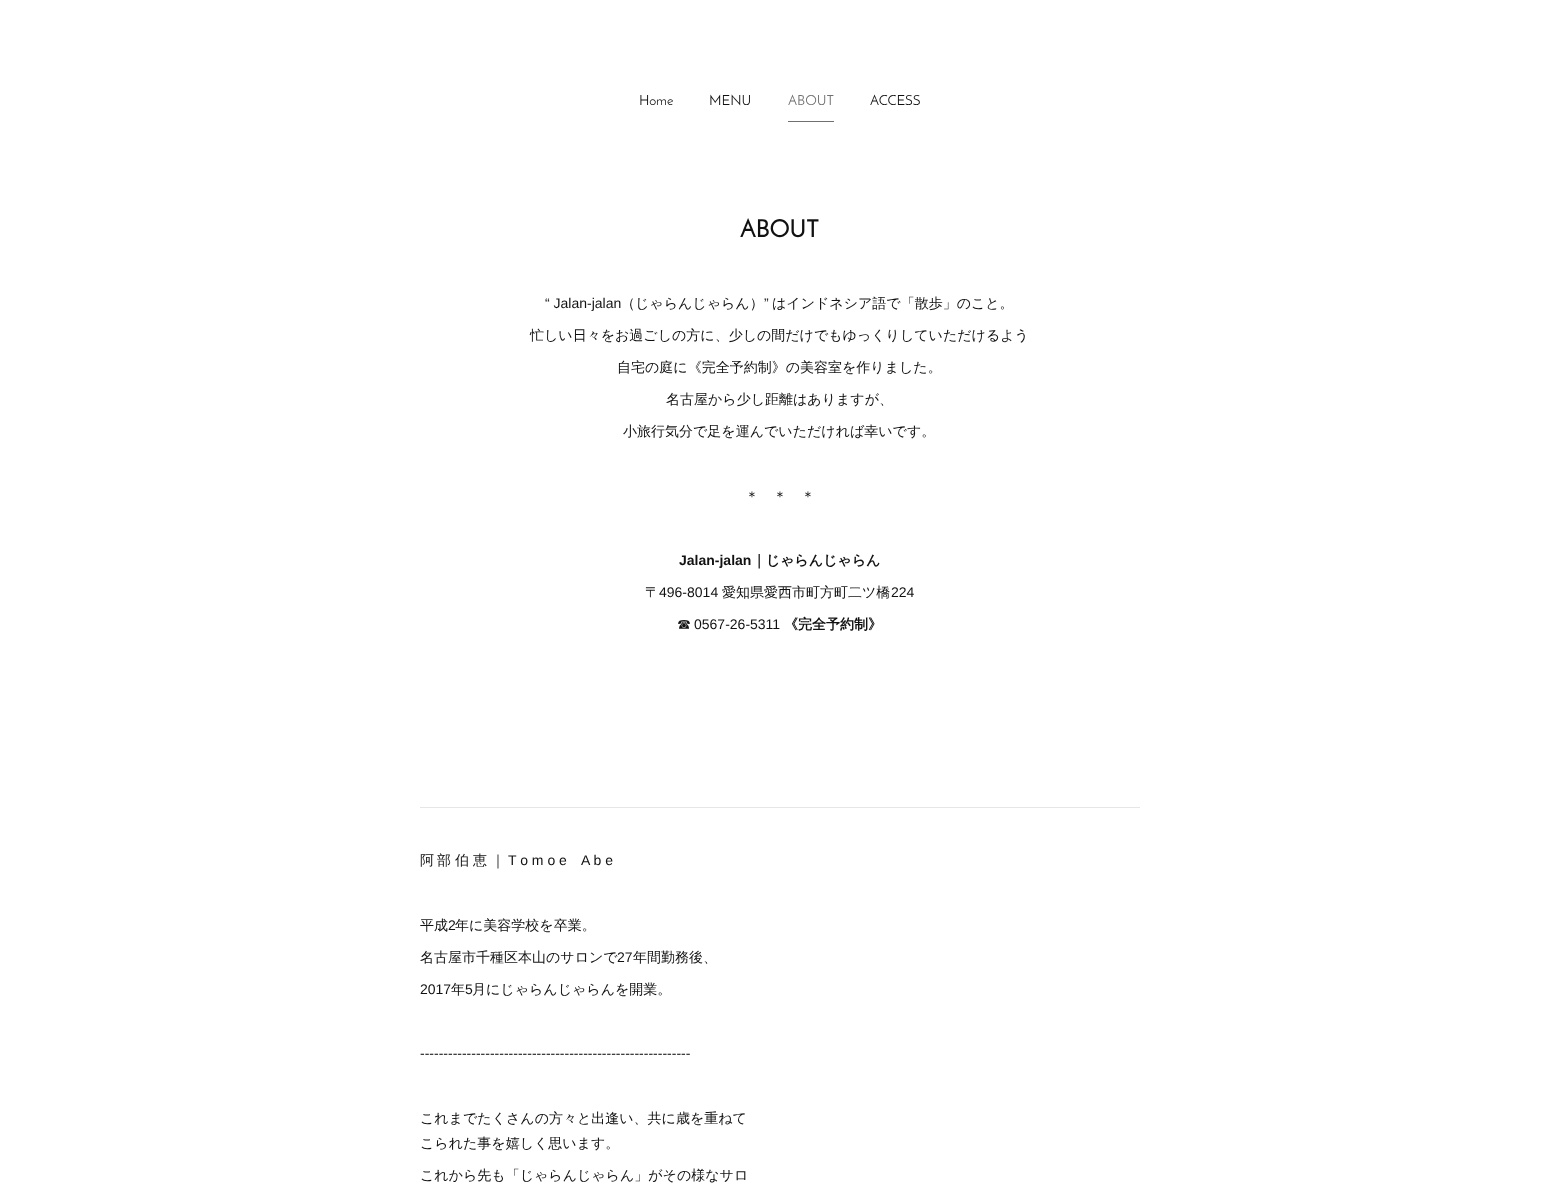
(async () => {
const canvas = document.querySelector("canvas")
canvas.width = 1559
canvas.height = 1192
const c = canvas.getContext("2d")
c.miterLimit = 4
c.fontKerning = "normal"
function T(s,x,y){c.fillText(s,x,y)}
function R(x,y,w,h){c.fillRect(x,y,w,h)}
c.fillStyle="#fff"
R(0,0,1559,1192)
c.font="14px Josefin Sans"
c.fillStyle="#111"
T("Home",639,105)
T("MENU",709,105)
c.fillStyle="#707070"
T("ABOUT",788,105)
R(788,121,46,1)
c.fillStyle="#111"
T("ACCESS",870,105)
c.font="bold 24px Josefin Sans"
T("ABOUT",740,237)
c.font="14px Liberation Sans"
T("“ Jalan-jalan",545,308)
c.font="500 14px WenQuanYi Zen Hei"
T("（じゃらんじゃらん）",621,308)
c.font="14px Liberation Sans"
T("”",764,308)
c.font="500 14px WenQuanYi Zen Hei"
T("はインドネシア語で「散歩」のこと。",772,308)
T("忙しい日々をお過ごしの方に、少しの間だけでもゆっくりしていただけるよう",530,340)
T("自宅の庭に《完全予約制》の美容室を作りました。",617,372)
T("名古屋から少し距離はありますが、",666,404)
T("小旅行気分で足を運んでいただければ幸いです。",623,436)
T("＊　＊　＊",745,501)
c.font="bold 14px Liberation Sans"
T("Jalan-jalan",679,565)
c.font="bold 14px WenQuanYi Zen Hei"
T("｜じゃらんじゃらん",752,565)
c.font="500 14px WenQuanYi Zen Hei"
T("〒",645,597)
c.font="14px Liberation Sans"
T("496-8014",659,597)
c.font="500 14px WenQuanYi Zen Hei"
T("愛知県愛西市町方町二ツ橋",722,597)
c.font="14px Liberation Sans"
T("224",891,597)
c.font="500 14px WenQuanYi Zen Hei"
T("☎︎",677,629)
c.font="14px Liberation Sans"
T("0567-26-5311",694,629)
c.font="bold 14px WenQuanYi Zen Hei"
T("《完全予約制》",784,629)
c.fillStyle="#e6e6e6"
R(420,807,720,1)
c.font="500 14px WenQuanYi Zen Hei"
c.fillStyle="#111"
T("阿",420,865)
T("部",437,865)
T("伯",455,865)
T("恵",473,865)
T("｜",491,865)
c.font="14px Liberation Sans"
T("T o m o e",508,865)
T("A b e",581,865)
c.font="500 14px WenQuanYi Zen Hei"
T("平成",420,930)
c.font="14px Liberation Sans"
T("2",448,930)
c.font="500 14px WenQuanYi Zen Hei"
T("年に美容学校を卒業。",455,930)
T("名古屋市千種区本山のサロンで",420,962)
c.font="14px Liberation Sans"
T("27",617,962)
c.font="500 14px WenQuanYi Zen Hei"
T("年間勤務後、",633,962)
c.font="14px Liberation Sans"
T("2017",420,994)
c.font="500 14px WenQuanYi Zen Hei"
T("年",451,994)
c.font="14px Liberation Sans"
T("5",465,994)
c.font="500 14px WenQuanYi Zen Hei"
T("月にじゃらんじゃらんを開業。",472,994)
c.font="14px Liberation Sans"
T("----------------------------------------------------------",420,1058)
c.font="500 14px WenQuanYi Zen Hei"
T("これまでたくさんの方々と出逢い、共に歳を重ねて",420,1123)
T("こられた事を嬉しく思います。",420,1148)
T("これから先も「じゃらんじゃらん」がその様なサロ",420,1180)
})()
